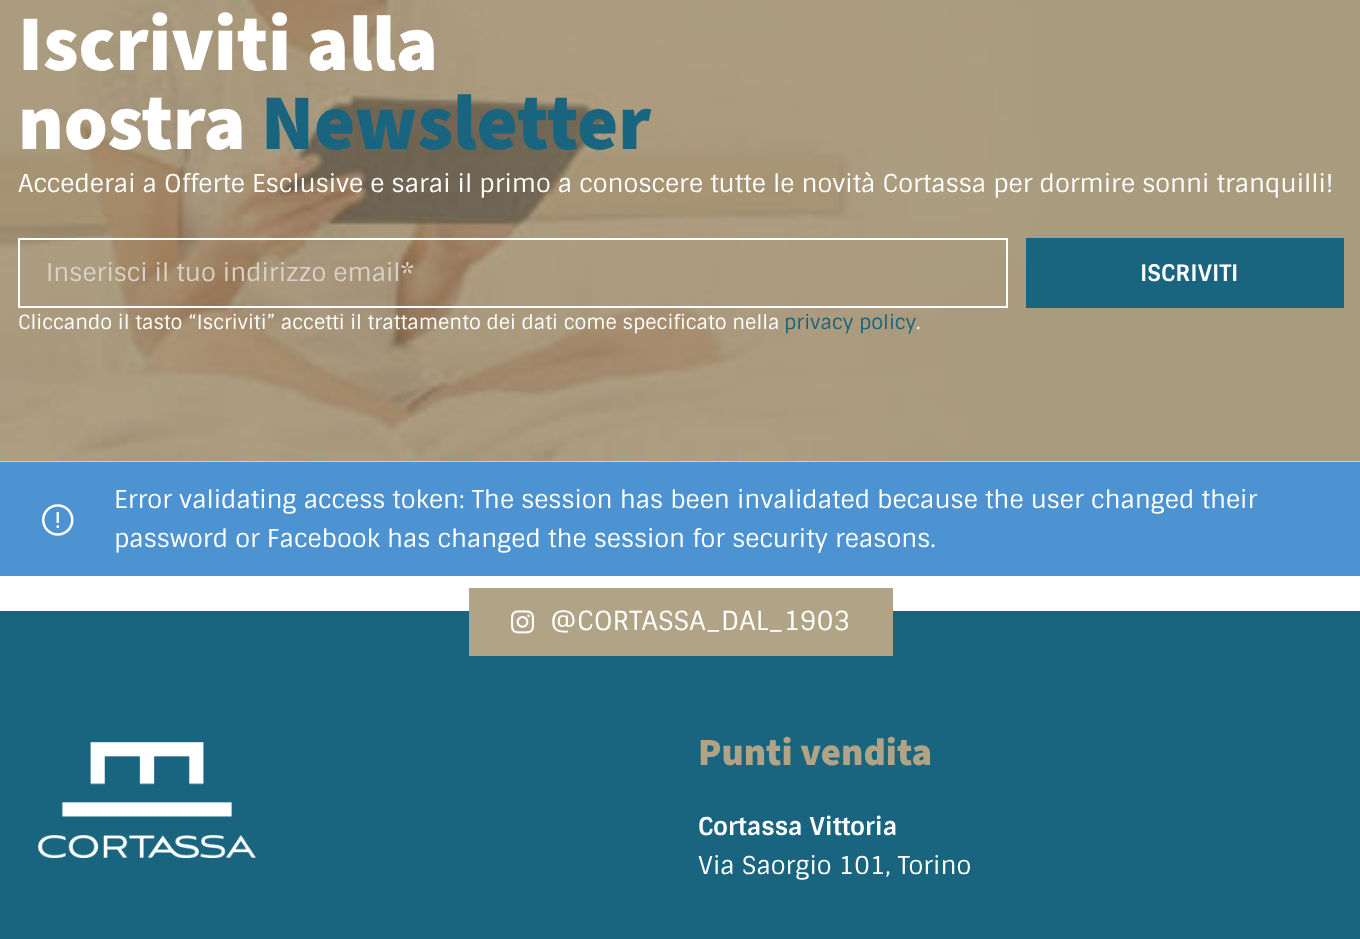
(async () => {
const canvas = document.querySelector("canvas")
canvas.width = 1360
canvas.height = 939
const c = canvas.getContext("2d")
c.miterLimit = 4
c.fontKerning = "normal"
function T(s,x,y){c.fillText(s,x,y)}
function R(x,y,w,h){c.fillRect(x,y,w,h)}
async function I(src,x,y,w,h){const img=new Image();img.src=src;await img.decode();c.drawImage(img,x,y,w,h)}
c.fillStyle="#fff"
R(0,0,1360,939)
await I("1.png",0,0,1360,462)
c.font="900 78.75px 'Source Sans 3'"
T("Iscriviti alla",18,70)
T("nostra",18,149)
c.fillStyle="#19647e"
T("Newsletter",261,149)
c.font="24.5px Sintony"
c.fillStyle="#fff"
T("Accederai a Offerte Esclusive e sarai il primo a conoscere tutte le novità Cortassa per dormire sonni tranquilli!",18,192)
c.strokeStyle="#fff"
c.lineWidth=2
c.strokeRect(19,239,988,68)
c.fillStyle="#dbd2c7"
T("Inserisci il tuo indirizzo email*",46,281)
c.fillStyle="#19647e"
R(1026,238,318,70)
c.font="bold 22.75px Sintony"
c.fillStyle="#fff"
T("ISCRIVITI",1140,281)
c.font="19.6px Sintony"
T("Cliccando il tasto “Iscriviti” accetti il trattamento dei dati come specificato nella",18,329)
c.fillStyle="#19647e"
T("privacy policy",784,329)
c.fillStyle="#fff"
T(".",916,329)
c.fillStyle="#4d93d1"
R(0,462,1360,114)
c.font="24.5px Sintony"
c.fillStyle="#fff"
T("Error validating access token: The session has been invalidated because the user changed their",114,508)
await I("2.png",42,504,32,32)
T("password or Facebook has changed the session for security reasons.",114,547)
c.fillStyle="#19647e"
R(0,611,1360,328)
c.fillStyle="#b1a486"
R(469,588,424,68)
await I("3.png",511,610,23,24)
c.font="26.25px Sintony"
c.fillStyle="#fff"
T("@CORTASSA_DAL_1903",550,630)
await I("4.png",38,742,218,116)
c.font="900 38.5px 'Source Sans 3'"
c.fillStyle="#b1a486"
T("Punti vendita",698,765)
c.font="bold 24.5px Sintony"
c.fillStyle="#fff"
T("Cortassa Vittoria",698,835)
c.font="24.5px Sintony"
T("Via Saorgio 101, Torino",698,874)
})()
